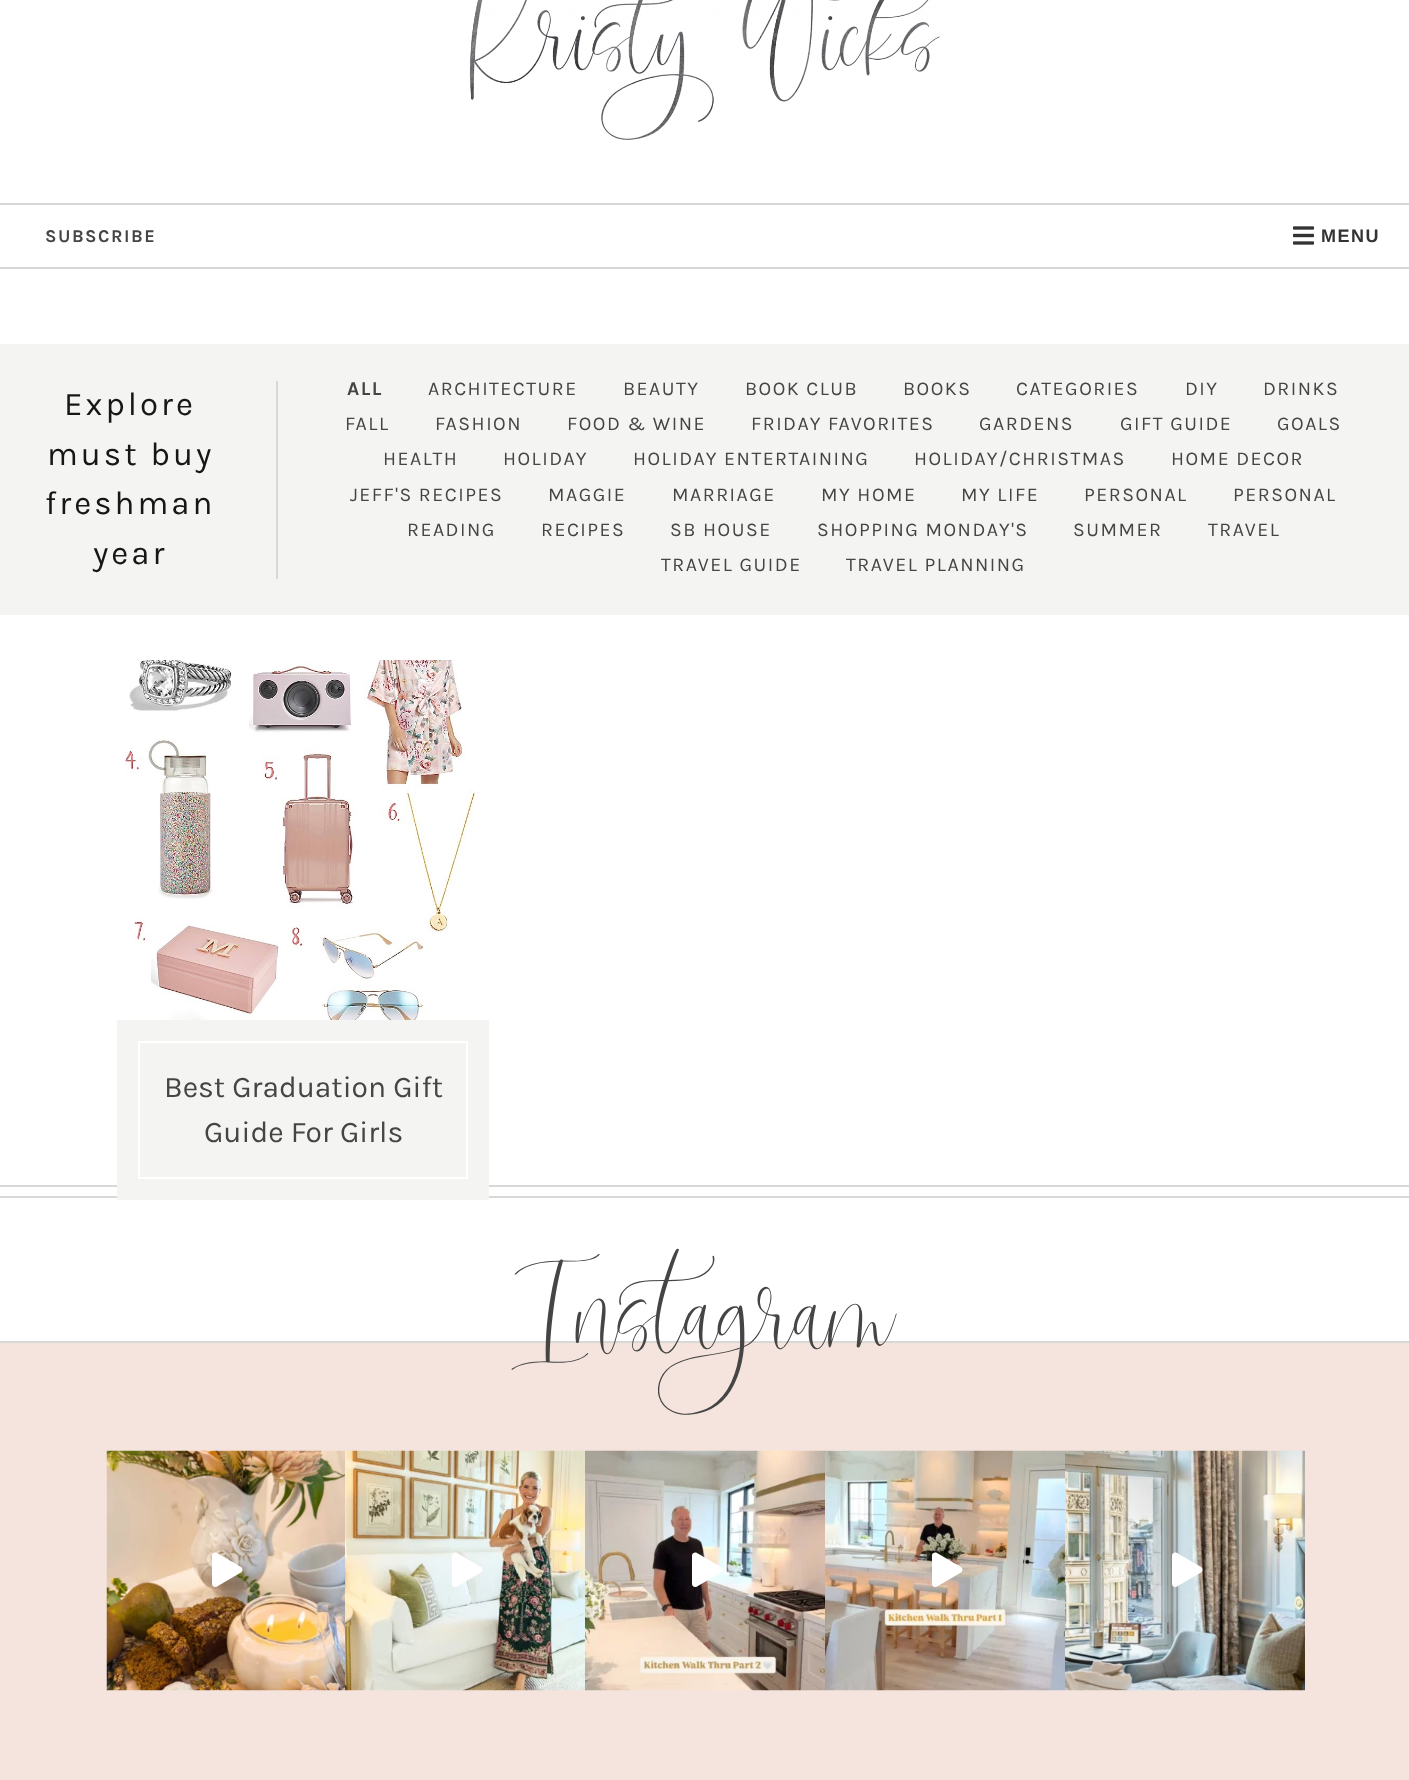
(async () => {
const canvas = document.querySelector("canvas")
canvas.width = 1409
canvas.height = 1780
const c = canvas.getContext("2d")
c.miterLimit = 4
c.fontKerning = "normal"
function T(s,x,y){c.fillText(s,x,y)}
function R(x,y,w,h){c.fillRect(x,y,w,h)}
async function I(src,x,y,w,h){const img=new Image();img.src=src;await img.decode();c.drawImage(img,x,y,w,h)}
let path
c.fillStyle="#fff"
R(0,0,1409,1780)
await I("1.png",469,0,471,140)
c.fillStyle="#d8d8d8"
R(0,203,1409,2)
R(0,267,1409,2)
c.letterSpacing="1.5px"
c.font="bold 18px Karla"
c.fillStyle="#454545"
T("SUBSCRIBE",45,242)
await I("2.png",1293,226,21,19)
c.font="bold 18px Liberation Sans"
c.fillStyle="#333"
T("MENU",1321,242)
c.fillStyle="#f4f4f2"
R(0,344,1409,271)
c.fillStyle="#d8d8d8"
R(276,381,2,198)
c.letterSpacing="3px"
c.font="33px Karla"
c.fillStyle="#161616"
T("Explore",64,415)
T("must buy",47,465)
T("freshman",45,514)
T("year",93,564)
c.letterSpacing="1.5px"
c.font="bold 19.5px Karla"
c.fillStyle="#454545"
T("ALL",347,395)
c.font="19.5px Karla"
T("ARCHITECTURE",428,395)
T("BEAUTY",623,395)
T("BOOK CLUB",745,395)
T("BOOKS",903,395)
T("CATEGORIES",1016,395)
T("DIY",1185,395)
T("DRINKS",1263,395)
T("FALL",345,430)
T("FASHION",435,430)
T("FOOD & WINE",567,430)
T("FRIDAY FAVORITES",751,430)
T("GARDENS",979,430)
T("GIFT GUIDE",1120,430)
T("GOALS",1277,430)
T("HEALTH",383,465)
T("HOLIDAY",503,465)
T("HOLIDAY ENTERTAINING",633,465)
T("HOLIDAY/CHRISTMAS",914,465)
T("HOME DECOR",1171,465)
T("JEFF'S RECIPES",350,501)
T("MAGGIE",548,501)
T("MARRIAGE",672,501)
T("MY HOME",821,501)
T("MY LIFE",961,501)
T("PERSONAL",1084,501)
T("PERSONAL",1233,501)
T("READING",407,536)
T("RECIPES",541,536)
T("SB HOUSE",670,536)
T("SHOPPING MONDAY'S",817,536)
T("SUMMER",1073,536)
T("TRAVEL",1208,536)
T("TRAVEL GUIDE",661,571)
T("TRAVEL PLANNING",846,571)
await I("3.png",125,660,351,360)
c.fillStyle="#d8d8d8"
R(0,1185,1409,2)
R(0,1196,1409,2)
c.fillStyle="#f4f4f2"
R(117,1020,372,180)
c.strokeStyle="#fff"
c.lineWidth=2
c.strokeRect(139,1042,328,136)
c.letterSpacing="0px"
c.font="30px Karla"
c.fillStyle="#454545"
T("Best Graduation Gift",164,1097)
T("Guide For Girls",204,1142)
c.fillStyle="#f4e4dd"
R(0,1343,1409,437)
c.fillStyle="#d8d8d8"
R(0,1341,1409,2)
c.font="97.5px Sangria"
c.fillStyle="#454545"
T("Instagram",515,1345)
await I("4.png",106,1450,239,241)
c.fillStyle="#fff"
path = new Path2D("M241 1567l-24-14c-2-1-5 0-5 2.5v28.5c0 2.5 3 4 5 2.5l24-14c2-1 2-4.5 0-5.5z")
c.fill(path)
await I("5.png",345,1450,240,241)
path = new Path2D("M481 1567l-24-14c-2-1-5 0-5 2.5v28.5c0 2.5 3 4 5 2.5l24-14c2-1 2-4.5 0-5.5z")
c.fill(path)
await I("6.png",585,1450,240,241)
path = new Path2D("M721 1567l-24-14c-2-1-5 0-5 2.5v28.5c0 2.5 3 4 5 2.5l24-14c2-1 2-4.5 0-5.5z")
c.fill(path)
await I("7.png",825,1450,240,241)
path = new Path2D("M961 1567l-24-14c-2-1-5 0-5 2.5v28.5c0 2.5 3 4 5 2.5l24-14c2-1 2-4.5 0-5.5z")
c.fill(path)
await I("8.png",1065,1450,240,241)
path = new Path2D("M1201 1567l-24-14c-2-1-5 0-5 2.5v28.5c0 2.5 3 4 5 2.5l24-14c2-1 2-4.5 0-5.5z")
c.fill(path)
})()
